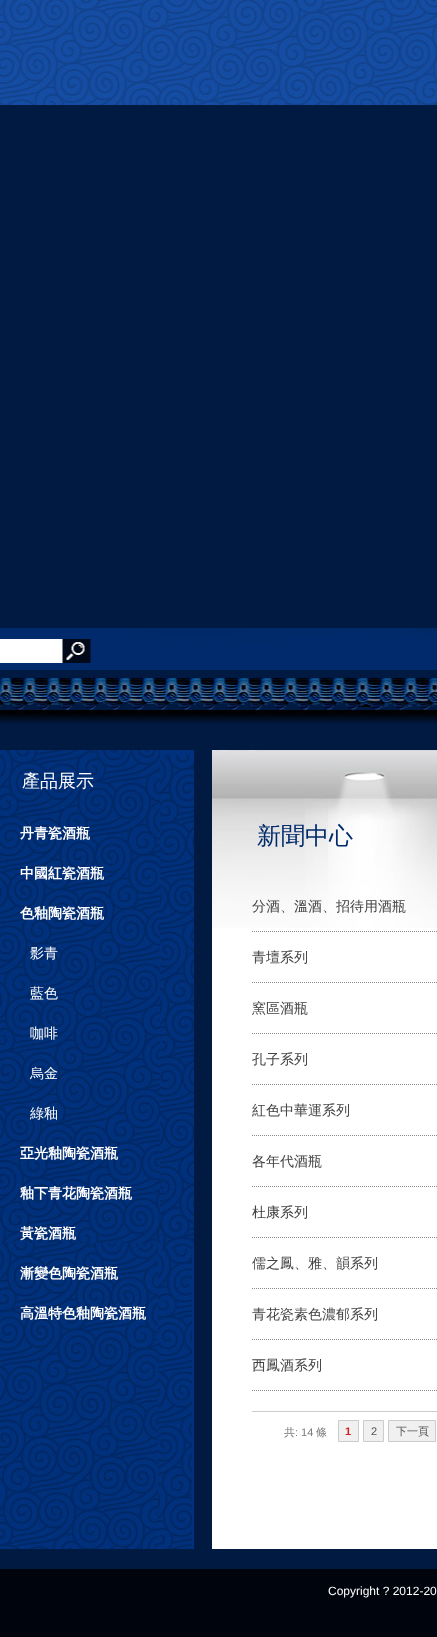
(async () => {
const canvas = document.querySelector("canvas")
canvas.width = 437
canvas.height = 1637
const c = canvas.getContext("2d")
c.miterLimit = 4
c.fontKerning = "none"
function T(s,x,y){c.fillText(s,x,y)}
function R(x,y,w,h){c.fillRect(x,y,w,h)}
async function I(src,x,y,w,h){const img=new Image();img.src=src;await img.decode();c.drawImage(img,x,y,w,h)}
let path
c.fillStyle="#001a42"
R(0,0,437,1637)
await I("1.png",0,0,437,105)
await I("2.png",0,628,437,96)
await I("3.png",0,750,200,799)
c.font="500 18px WenQuanYi Zen Hei"
c.fillStyle="#fff"
T("產品展示",22,787)
c.font="bold 14px WenQuanYi Zen Hei"
T("丹青瓷酒瓶",20,838)
T("中國紅瓷酒瓶",20,878)
T("色釉陶瓷酒瓶",20,918)
c.font="500 14px WenQuanYi Zen Hei"
T("影青",30,958)
T("藍色",30,998)
T("咖啡",30,1038)
T("烏金",30,1078)
T("綠釉",30,1118)
c.font="bold 14px WenQuanYi Zen Hei"
T("亞光釉陶瓷酒瓶",20,1158)
T("釉下青花陶瓷酒瓶",20,1198)
T("黃瓷酒瓶",20,1238)
T("漸變色陶瓷酒瓶",20,1278)
T("高溫特色釉陶瓷酒瓶",20,1318)
R(212,928,225,621)
await I("4.png",212,750,225,178)
c.font="500 24px WenQuanYi Zen Hei"
c.fillStyle="#002a6b"
T("新聞中心",257,844)
path = new Path2D("M252 931.5h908")
c.strokeStyle="#888a89"
c.setLineDash([1,1])
c.stroke(path)
c.font="500 14px WenQuanYi Zen Hei"
c.fillStyle="#414141"
T("分酒、溫酒、招待用酒瓶",252,911)
path = new Path2D("M252 982.5h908")
c.stroke(path)
T("青壇系列",252,962)
path = new Path2D("M252 1033.5h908")
c.stroke(path)
T("窯區酒瓶",252,1013)
path = new Path2D("M252 1084.5h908")
c.stroke(path)
T("孔子系列",252,1064)
path = new Path2D("M252 1135.5h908")
c.stroke(path)
T("紅色中華運系列",252,1115)
path = new Path2D("M252 1186.5h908")
c.stroke(path)
T("各年代酒瓶",252,1166)
path = new Path2D("M252 1237.5h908")
c.stroke(path)
T("杜康系列",252,1217)
path = new Path2D("M252 1288.5h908")
c.stroke(path)
T("儒之鳳、雅、韻系列",252,1268)
path = new Path2D("M252 1339.5h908")
c.stroke(path)
T("青花瓷素色濃郁系列",252,1319)
path = new Path2D("M252 1390.5h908")
c.stroke(path)
T("西鳳酒系列",252,1370)
c.fillStyle="#ccc"
R(252,1411,185,1)
c.font="500 11px WenQuanYi Zen Hei"
c.fillStyle="#777"
T("共",284,1436)
c.font="11px Liberation Sans"
T(": 14",295,1436)
c.font="500 11px WenQuanYi Zen Hei"
T("條",316,1436)
c.fillStyle="#f0f0f0"
c.beginPath()
c.rect(338.5,1420.5,20,21)
c.fill()
c.strokeStyle="#ccc"
c.setLineDash([])
c.stroke()
c.font="bold 11px Liberation Sans"
c.fillStyle="#d2211f"
T("1",345,1435)
c.fillStyle="#f0f0f0"
c.beginPath()
c.rect(363.5,1420.5,20,21)
c.fill()
c.stroke()
c.font="11px Liberation Sans"
c.fillStyle="#555"
T("2",371,1435)
c.fillStyle="#f0f0f0"
c.beginPath()
c.rect(388.5,1420.5,47,21)
c.fill()
c.stroke()
c.font="500 11px WenQuanYi Zen Hei"
c.fillStyle="#555"
T("下一頁",396,1435)
c.fillStyle="#00050d"
R(0,1569,437,68)
c.font="12px Liberation Sans"
c.fillStyle="#fff"
T("Copyright ? 2012-20",328,1595)
})()
